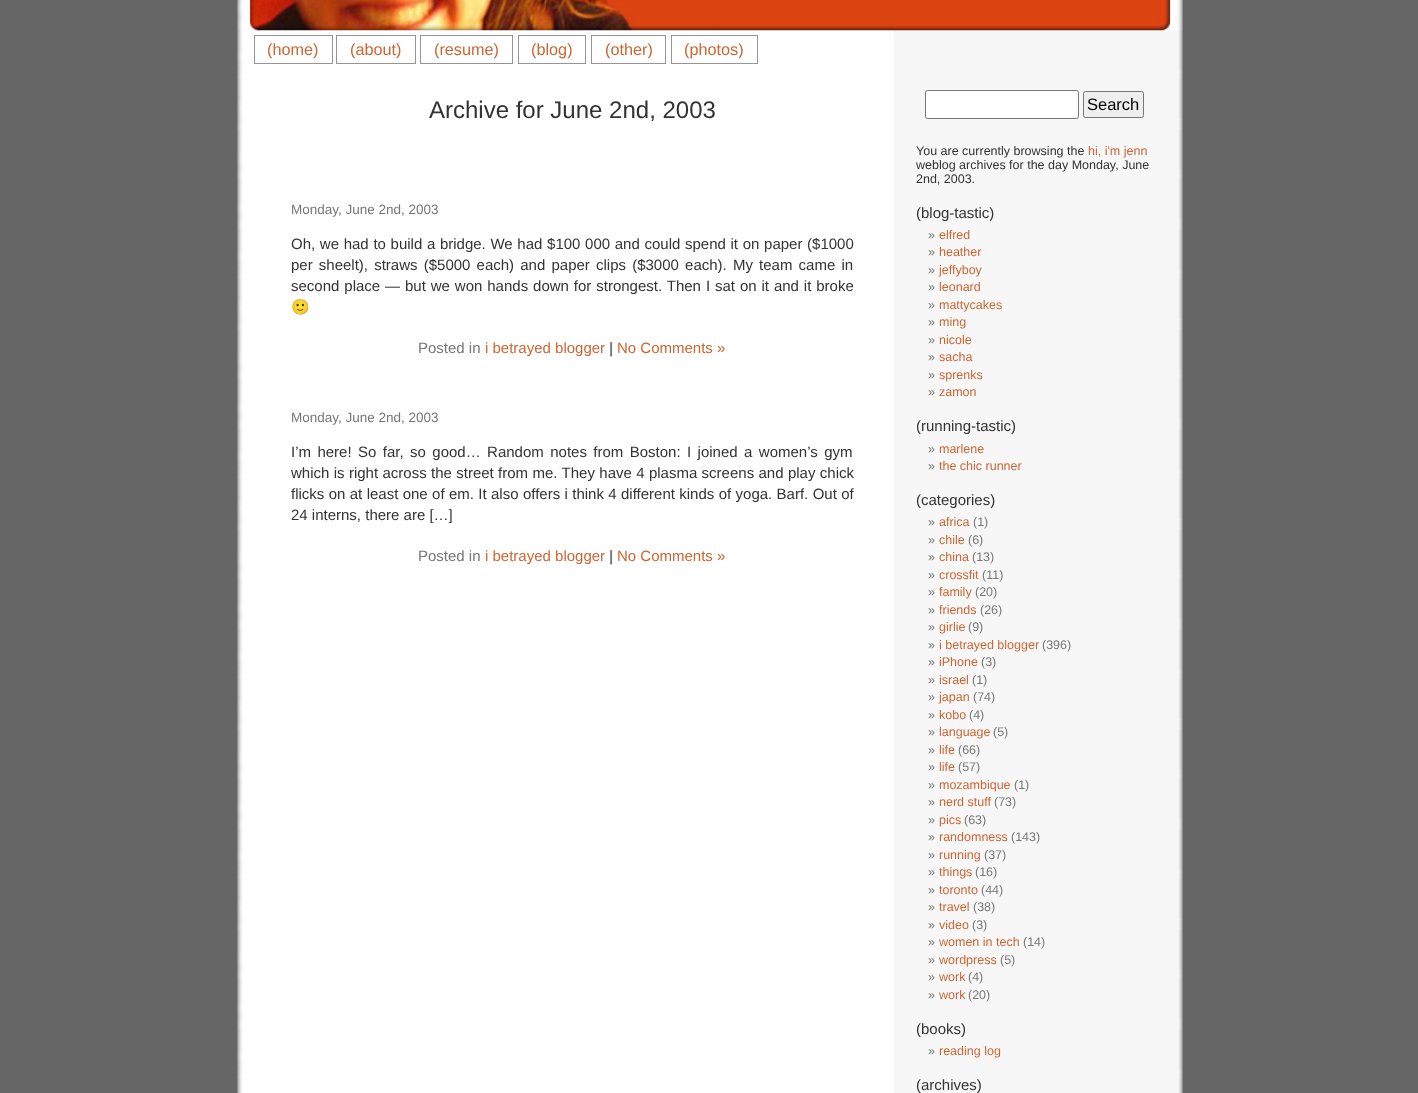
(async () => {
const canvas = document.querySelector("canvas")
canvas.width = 1418
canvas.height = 1093
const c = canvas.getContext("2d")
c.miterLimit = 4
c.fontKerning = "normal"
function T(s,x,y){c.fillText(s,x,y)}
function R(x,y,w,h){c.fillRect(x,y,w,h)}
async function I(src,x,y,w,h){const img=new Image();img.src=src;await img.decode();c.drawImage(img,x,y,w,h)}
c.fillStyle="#666"
R(0,0,1418,1093)
await I("1.png",237,0,946,1093)
await I("2.png",249,0,934,31)
c.strokeStyle="#959596"
c.strokeRect(254.5,35.5,78,28)
c.font="16.25px Liberation Sans"
c.fillStyle="#c63"
T("(home)",267,55)
c.strokeRect(336.5,35.5,79,28)
T("(about)",350,55)
c.strokeRect(420.5,35.5,92,28)
T("(resume)",434,55)
c.strokeRect(518.5,35.5,67,28)
T("(blog)",531,55)
c.strokeRect(591.5,35.5,74,28)
T("(other)",605,55)
c.strokeRect(671.5,35.5,86,28)
T("(photos)",684,55)
c.font="24px Liberation Sans"
c.fillStyle="#333"
T("Archive for June 2nd, 2003",429,118)
c.font="13.5px Liberation Sans"
c.fillStyle="#777"
T("Monday, June 2nd, 2003",291,214)
c.wordSpacing="0.5px"
c.font="15px Liberation Sans"
c.fillStyle="#333"
T("Oh, we had to build a bridge. We had $100 000 and could spend it on paper ($1000",291,249)
c.wordSpacing="2px"
T("per sheelt), straws ($5000 each) and paper clips ($3000 each). My team came in",291,270)
c.wordSpacing="0.75px"
T("second place — but we won hands down for strongest. Then I sat on it and it broke",291,291)
c.wordSpacing="0px"
c.font="15px Noto Color Emoji"
T("🙂",291,312)
c.font="15px Liberation Sans"
c.fillStyle="#777"
T("Posted in",418,353)
c.fillStyle="#c63"
T("i betrayed blogger",485,353)
c.font="bold 15px Liberation Sans"
c.fillStyle="#777"
T("|",609,353)
c.font="15px Liberation Sans"
c.fillStyle="#c63"
T("No Comments »",617,353)
c.font="13.5px Liberation Sans"
c.fillStyle="#777"
T("Monday, June 2nd, 2003",291,422)
c.wordSpacing="2.25px"
c.font="15px Liberation Sans"
c.fillStyle="#333"
T("I’m here! So far, so good… Random notes from Boston: I joined a women’s gym",291,457)
c.wordSpacing="0.2px"
T("which is right across the street from me. They have 4 plasma screens and play chick",291,478)
T("flicks on at least one of em. It also offers i think 4 different kinds of yoga. Barf. Out of",291,499)
c.wordSpacing="0px"
T("24 interns, there are […]",291,520)
c.fillStyle="#777"
T("Posted in",418,561)
c.fillStyle="#c63"
T("i betrayed blogger",485,561)
c.font="bold 15px Liberation Sans"
c.fillStyle="#777"
T("|",609,561)
c.font="15px Liberation Sans"
c.fillStyle="#c63"
T("No Comments »",617,561)
c.fillStyle="#fff"
c.beginPath()
c.roundRect(925.5,90.5,153,28,2)
c.fill()
c.strokeStyle="#767676"
c.stroke()
c.fillStyle="#efefef"
c.beginPath()
c.roundRect(1083.5,91.5,60,26,2)
c.fill()
c.stroke()
c.font="16.5px Liberation Sans"
c.fillStyle="#000"
T("Search",1087,110)
c.font="12.5px Liberation Sans"
c.fillStyle="#333"
T("You are currently browsing the",916,155)
c.fillStyle="#c63"
T("hi, i'm jenn",1088,155)
c.fillStyle="#333"
T("weblog archives for the day Monday, June",916,169)
T("2nd, 2003.",916,183)
c.font="15px Liberation Sans"
T("(blog-tastic)",916,218)
c.font="12.5px Liberation Sans"
c.fillStyle="#777"
T("»",928,239)
c.fillStyle="#c63"
T("elfred",939,239)
c.fillStyle="#777"
T("»",928,256)
c.fillStyle="#c63"
T("heather",939,256)
c.fillStyle="#777"
T("»",928,274)
c.fillStyle="#c63"
T("jeffyboy",939,274)
c.fillStyle="#777"
T("»",928,291)
c.fillStyle="#c63"
T("leonard",939,291)
c.fillStyle="#777"
T("»",928,309)
c.fillStyle="#c63"
T("mattycakes",939,309)
c.fillStyle="#777"
T("»",928,326)
c.fillStyle="#c63"
T("ming",939,326)
c.fillStyle="#777"
T("»",928,344)
c.fillStyle="#c63"
T("nicole",939,344)
c.fillStyle="#777"
T("»",928,361)
c.fillStyle="#c63"
T("sacha",939,361)
c.fillStyle="#777"
T("»",928,379)
c.fillStyle="#c63"
T("sprenks",939,379)
c.fillStyle="#777"
T("»",928,396)
c.fillStyle="#c63"
T("zamon",939,396)
c.font="15px Liberation Sans"
c.fillStyle="#333"
T("(running-tastic)",916,431)
c.font="12.5px Liberation Sans"
c.fillStyle="#777"
T("»",928,453)
c.fillStyle="#c63"
T("marlene",939,453)
c.fillStyle="#777"
T("»",928,470)
c.fillStyle="#c63"
T("the chic runner",939,470)
c.font="15px Liberation Sans"
c.fillStyle="#333"
T("(categories)",916,505)
c.font="12.5px Liberation Sans"
c.fillStyle="#777"
T("»",928,526)
c.fillStyle="#c63"
T("africa",939,526)
c.fillStyle="#777"
T("(1)",973,526)
T("»",928,544)
c.fillStyle="#c63"
T("chile",939,544)
c.fillStyle="#777"
T("(6)",968,544)
T("»",928,561)
c.fillStyle="#c63"
T("china",939,561)
c.fillStyle="#777"
T("(13)",972,561)
T("»",928,579)
c.fillStyle="#c63"
T("crossfit",939,579)
c.fillStyle="#777"
T("(11)",982,579)
T("»",928,596)
c.fillStyle="#c63"
T("family",939,596)
c.fillStyle="#777"
T("(20)",975,596)
T("»",928,614)
c.fillStyle="#c63"
T("friends",939,614)
c.fillStyle="#777"
T("(26)",980,614)
T("»",928,631)
c.fillStyle="#c63"
T("girlie",939,631)
c.fillStyle="#777"
T("(9)",968,631)
T("»",928,649)
c.fillStyle="#c63"
T("i betrayed blogger",939,649)
c.fillStyle="#777"
T("(396)",1042,649)
T("»",928,666)
c.fillStyle="#c63"
T("iPhone",939,666)
c.fillStyle="#777"
T("(3)",981,666)
T("»",928,684)
c.fillStyle="#c63"
T("israel",939,684)
c.fillStyle="#777"
T("(1)",972,684)
T("»",928,701)
c.fillStyle="#c63"
T("japan",939,701)
c.fillStyle="#777"
T("(74)",973,701)
T("»",928,719)
c.fillStyle="#c63"
T("kobo",939,719)
c.fillStyle="#777"
T("(4)",969,719)
T("»",928,736)
c.fillStyle="#c63"
T("language",939,736)
c.fillStyle="#777"
T("(5)",993,736)
T("»",928,754)
c.fillStyle="#c63"
T("life",939,754)
c.fillStyle="#777"
T("(66)",958,754)
T("»",928,771)
c.fillStyle="#c63"
T("life",939,771)
c.fillStyle="#777"
T("(57)",958,771)
T("»",928,789)
c.fillStyle="#c63"
T("mozambique",939,789)
c.fillStyle="#777"
T("(1)",1014,789)
T("»",928,806)
c.fillStyle="#c63"
T("nerd stuff",939,806)
c.fillStyle="#777"
T("(73)",994,806)
T("»",928,824)
c.fillStyle="#c63"
T("pics",939,824)
c.fillStyle="#777"
T("(63)",964,824)
T("»",928,841)
c.fillStyle="#c63"
T("randomness",939,841)
c.fillStyle="#777"
T("(143)",1011,841)
T("»",928,859)
c.fillStyle="#c63"
T("running",939,859)
c.fillStyle="#777"
T("(37)",984,859)
T("»",928,876)
c.fillStyle="#c63"
T("things",939,876)
c.fillStyle="#777"
T("(16)",975,876)
T("»",928,894)
c.fillStyle="#c63"
T("toronto",939,894)
c.fillStyle="#777"
T("(44)",981,894)
T("»",928,911)
c.fillStyle="#c63"
T("travel",939,911)
c.fillStyle="#777"
T("(38)",973,911)
T("»",928,929)
c.fillStyle="#c63"
T("video",939,929)
c.fillStyle="#777"
T("(3)",972,929)
T("»",928,946)
c.fillStyle="#c63"
T("women in tech",939,946)
c.fillStyle="#777"
T("(14)",1023,946)
T("»",928,964)
c.fillStyle="#c63"
T("wordpress",939,964)
c.fillStyle="#777"
T("(5)",1000,964)
T("»",928,981)
c.fillStyle="#c63"
T("work",939,981)
c.fillStyle="#777"
T("(4)",968,981)
T("»",928,999)
c.fillStyle="#c63"
T("work",939,999)
c.fillStyle="#777"
T("(20)",968,999)
c.font="15px Liberation Sans"
c.fillStyle="#333"
T("(books)",916,1034)
c.font="12.5px Liberation Sans"
c.fillStyle="#777"
T("»",928,1055)
c.fillStyle="#c63"
T("reading log",939,1055)
c.font="15px Liberation Sans"
c.fillStyle="#333"
T("(archives)",916,1090)
})()
